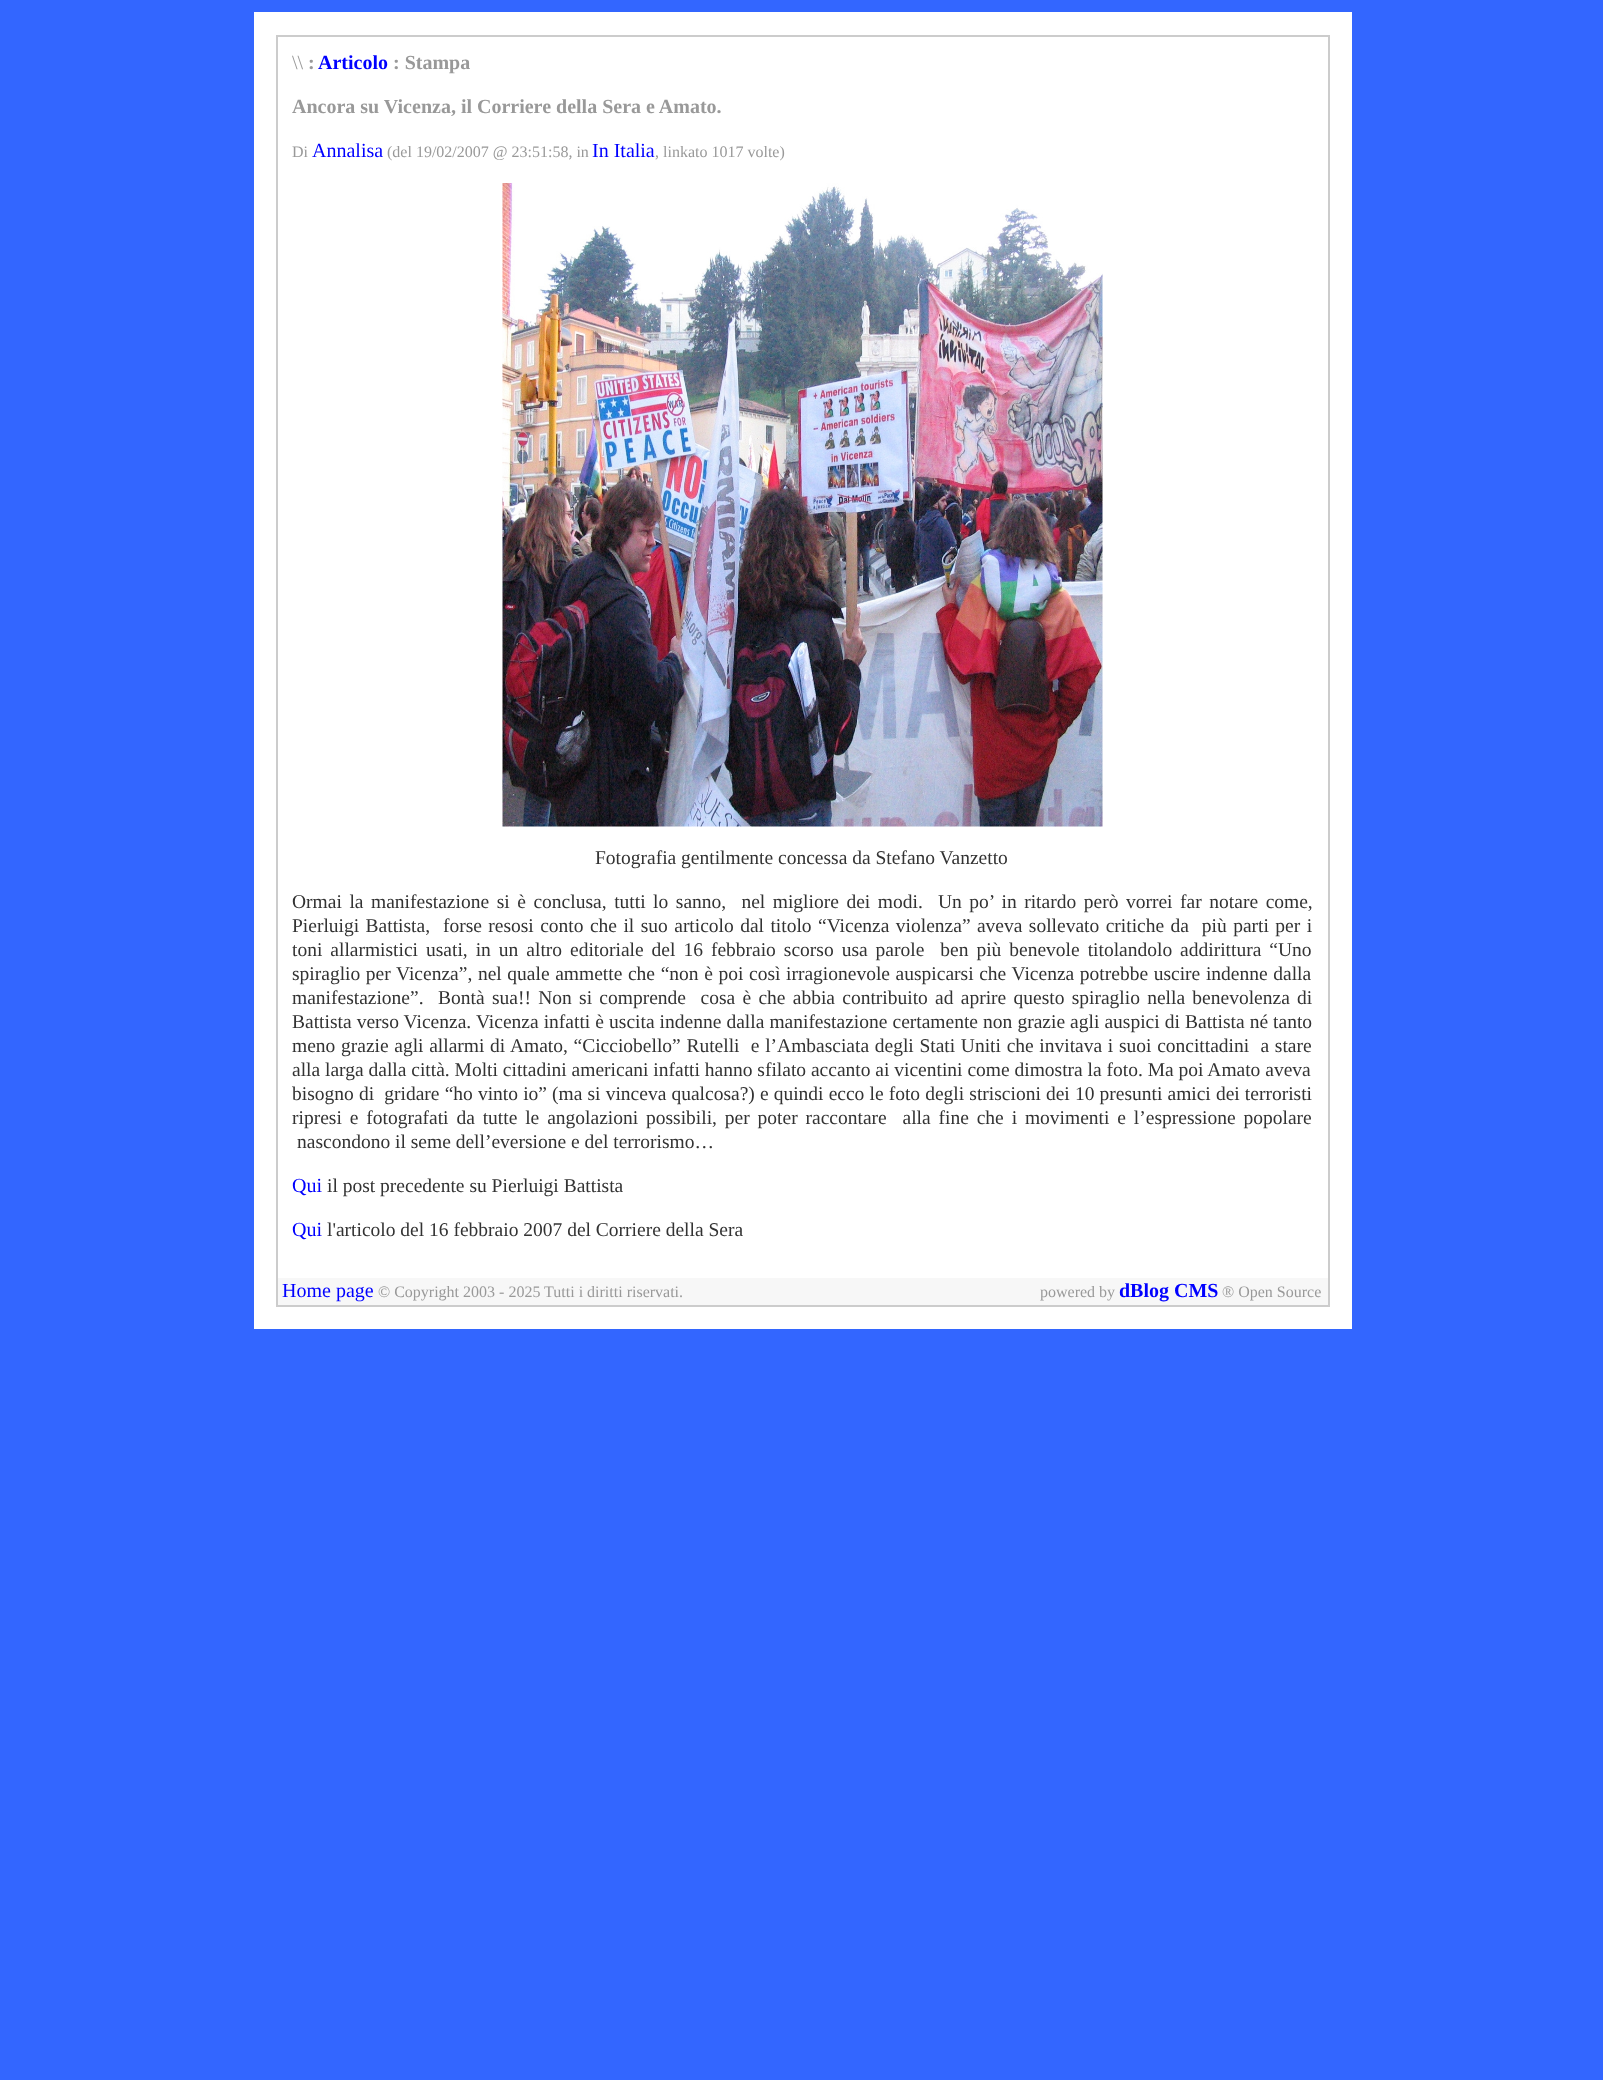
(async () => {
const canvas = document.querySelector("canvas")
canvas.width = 1603
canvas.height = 2080
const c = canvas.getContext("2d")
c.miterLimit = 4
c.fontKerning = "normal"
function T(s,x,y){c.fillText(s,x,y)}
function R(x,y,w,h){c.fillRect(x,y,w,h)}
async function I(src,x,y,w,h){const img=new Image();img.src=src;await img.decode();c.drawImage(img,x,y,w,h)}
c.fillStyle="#36f"
R(0,0,1603,2080)
c.fillStyle="#fff"
R(254,12,1098,1317)
c.fillStyle="#ccc"
R(276,35,1053,2)
R(1328,35,2,1272)
R(276,1305,1053,2)
R(276,35,2,1272)
c.font="20px Liberation Serif"
c.fillStyle="#999"
T("\\\\",292,69)
c.font="bold 20px Liberation Serif"
T(":",308,69)
c.fillStyle="#00f"
T("Articolo",318,69)
c.fillStyle="#999"
T(": Stampa",393,69)
T("Ancora su Vicenza, il Corriere della Sera e Amato.",292,113)
c.font="16px Liberation Serif"
T("Di",292,157)
c.font="20px Liberation Serif"
c.fillStyle="#00f"
T("Annalisa",312,157)
c.font="16px Liberation Serif"
c.fillStyle="#999"
T("(del 19/02/2007 @ 23:51:58, in",387,157)
c.font="20px Liberation Serif"
c.fillStyle="#00f"
T("In Italia",592,157)
c.font="16px Liberation Serif"
c.fillStyle="#999"
T(", linkato 1017 volte)",655,157)
await I("1.png",502,183,601,644)
c.font="19.5px Liberation Serif"
c.fillStyle="#333"
T("Fotografia gentilmente concessa da Stefano Vanzetto",595,864)
c.wordSpacing="2.7px"
T("Ormai la manifestazione si è conclusa, tutti lo sanno,  nel migliore dei modi.  Un po’ in ritardo però vorrei far notare come,",292,908)
c.wordSpacing="1.55px"
T("Pierluigi Battista,  forse resosi conto che il suo articolo dal titolo “Vicenza violenza” aveva sollevato critiche da  più parti per i",292,932)
c.wordSpacing="3.1px"
T("toni allarmistici usati, in un altro editoriale del 16 febbraio scorso usa parole  ben più benevole titolandolo addirittura “Uno",292,956)
c.wordSpacing="0.75px"
T("spiraglio per Vicenza”, nel quale ammette che “non è poi così irragionevole auspicarsi che Vicenza potrebbe uscire indenne dalla",292,980)
c.wordSpacing="2.4px"
T("manifestazione”.  Bontà sua!! Non si comprende  cosa è che abbia contribuito ad aprire questo spiraglio nella benevolenza di",292,1004)
c.wordSpacing="0.2px"
T("Battista verso Vicenza. Vicenza infatti è uscita indenne dalla manifestazione certamente non grazie agli auspici di Battista né tanto",292,1028)
c.wordSpacing="0.8px"
T("meno grazie agli allarmi di Amato, “Cicciobello” Rutelli  e l’Ambasciata degli Stati Uniti che invitava i suoi concittadini  a stare",292,1052)
c.wordSpacing="0px"
T("alla larga dalla città. Molti cittadini americani infatti hanno sfilato accanto ai vicentini come dimostra la foto. Ma poi Amato aveva",292,1076)
c.wordSpacing="0.25px"
T("bisogno di  gridare “ho vinto io” (ma si vinceva qualcosa?) e quindi ecco le foto degli striscioni dei 10 presunti amici dei terroristi",292,1100)
c.wordSpacing="3px"
T("ripresi e fotografati da tutte le angolazioni possibili, per poter raccontare  alla fine che i movimenti e l’espressione popolare",292,1124)
c.wordSpacing="0px"
T("nascondono il seme dell’eversione e del terrorismo…",297,1148)
c.font="20px Liberation Serif"
c.fillStyle="#00f"
T("Qui",292,1192)
c.font="19.5px Liberation Serif"
c.fillStyle="#333"
T("il post precedente su Pierluigi Battista",327,1192)
c.font="20px Liberation Serif"
c.fillStyle="#00f"
T("Qui",292,1236)
c.font="19.5px Liberation Serif"
c.fillStyle="#333"
T("l'articolo del 16 febbraio 2007 del Corriere della Sera",327,1236)
c.fillStyle="#f7f7f7"
R(278,1278,1050,27)
c.font="20px Liberation Serif"
c.fillStyle="#00f"
T("Home page",282,1297)
c.font="16px Liberation Serif"
c.fillStyle="#999"
T("© Copyright 2003 - 2025 Tutti i diritti riservati.",378,1297)
T("powered by",1040,1297)
c.font="bold 20px Liberation Serif"
c.fillStyle="#00f"
T("dBlog CMS",1119,1297)
c.font="16px Liberation Serif"
c.fillStyle="#999"
T("® Open Source",1222,1297)
})()
